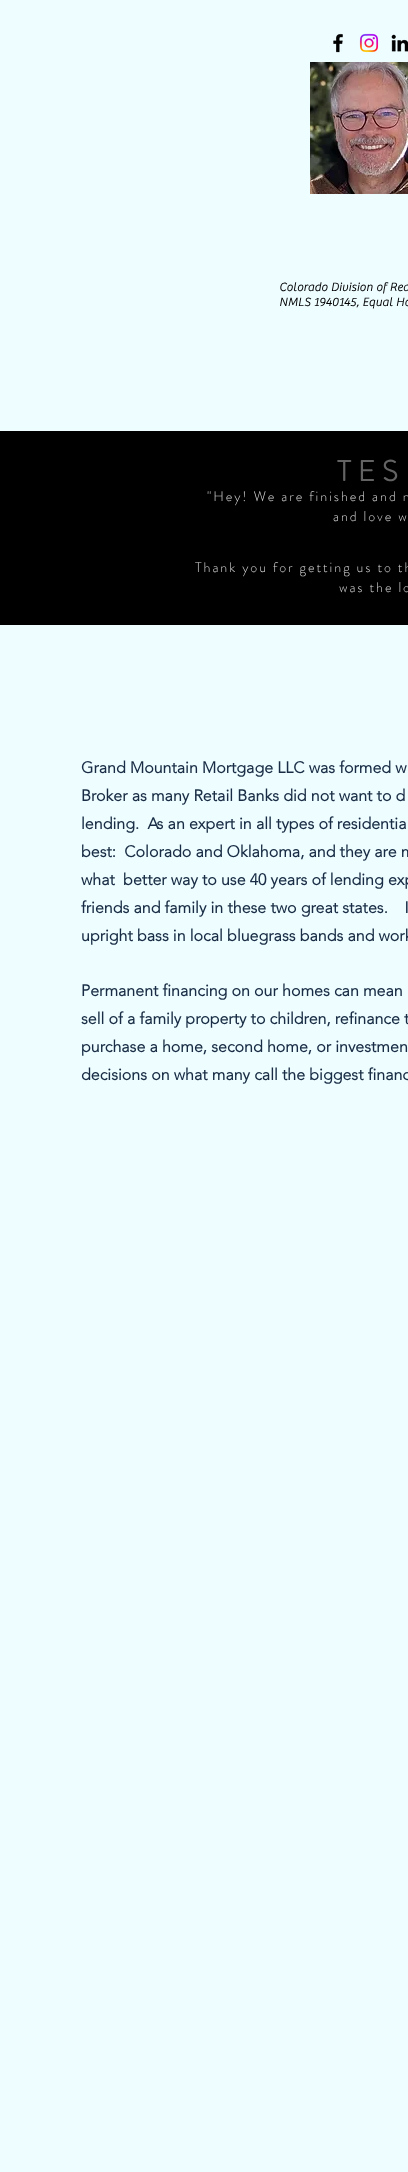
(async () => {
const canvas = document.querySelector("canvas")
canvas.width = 408
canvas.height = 2172
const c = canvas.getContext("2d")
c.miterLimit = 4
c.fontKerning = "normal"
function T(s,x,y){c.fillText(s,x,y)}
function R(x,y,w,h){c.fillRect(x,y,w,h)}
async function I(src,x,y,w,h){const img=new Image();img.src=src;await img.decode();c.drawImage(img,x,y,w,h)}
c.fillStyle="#eefdff"
R(0,0,408,2172)
await I("1.png",333,33,10,20)
await I("2.png",359,33,20,20)
await I("3.png",391,34,17,18)
await I("4.png",310,62,98,132)
c.letterSpacing="0.4px"
c.font="bold 12px 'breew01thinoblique'"
c.fillStyle="#000"
T("Colorado Division of Rea",279,291)
T("NMLS 1940145, Equal Ho",279,306)
R(0,431,408,194)
c.letterSpacing="7px"
c.font="bold 29px 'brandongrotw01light'"
c.fillStyle="#636363"
T("TES",337,481)
c.letterSpacing="1.95px"
c.font="300 14px 'brandongrotw01light'"
c.fillStyle="#d4d4d4"
T("\"Hey! We are finished and n",207,501)
T("and love w",333,521)
T("Thank you for getting us to th",195,572)
T("was the lo",339,592)
c.letterSpacing="0px"
c.font="bold 16px 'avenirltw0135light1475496'"
c.fillStyle="#182d45"
T("Grand Mountain Mortgage LLC was formed w",81,773)
T("Broker as many Retail Banks did not want to d",81,801)
T("lending.  As an expert in all types of residentia",81,829)
T("best:  Colorado and Oklahoma, and they are m",81,857)
T("what  better way to use 40 years of lending exp",81,885)
T("friends and family in these two great states.    I",81,913)
T("upright bass in local bluegrass bands and work",81,941)
T("Permanent financing on our homes can mean",81,996)
T("sell of a family property to children, refinance t",81,1024)
T("purchase a home, second home, or investmen",81,1052)
T("decisions on what many call the biggest financ",81,1080)
})()
